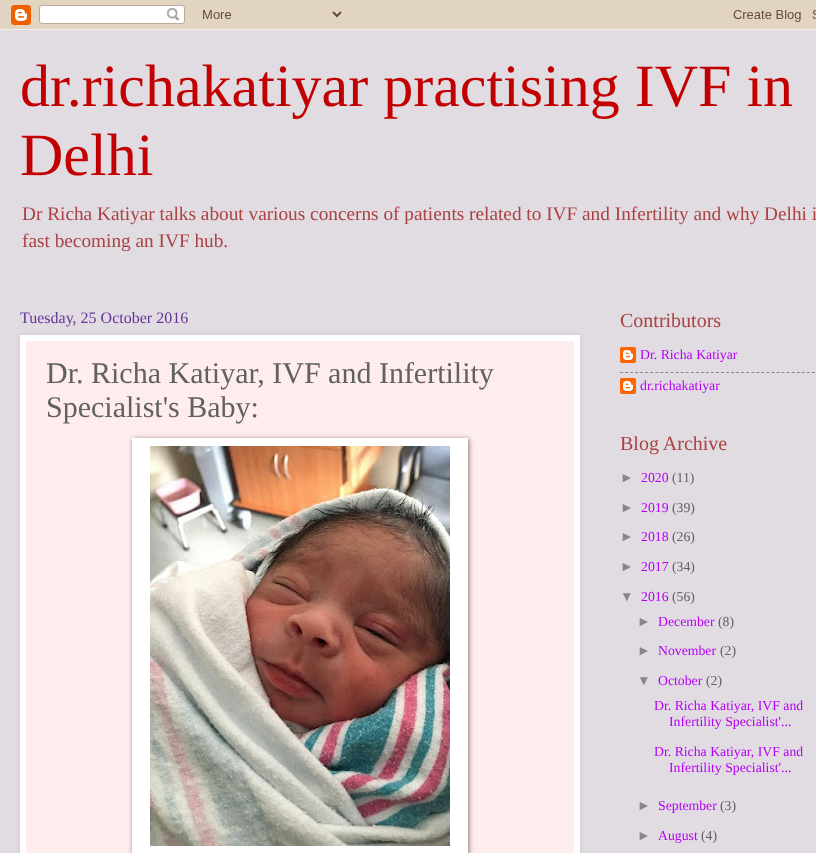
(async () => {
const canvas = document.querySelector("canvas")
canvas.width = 816
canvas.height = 853
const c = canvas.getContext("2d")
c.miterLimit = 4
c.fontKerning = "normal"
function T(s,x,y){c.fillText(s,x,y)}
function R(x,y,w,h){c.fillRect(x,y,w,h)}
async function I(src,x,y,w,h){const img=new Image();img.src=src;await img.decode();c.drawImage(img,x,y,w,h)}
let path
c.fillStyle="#e1dce2"
R(0,0,816,853)
await I("1.png",0,0,816,30)
c.font="60px Liberation Serif"
c.fillStyle="#c20002"
T("dr.richakatiyar practising IVF in",20,106)
T("Delhi",20,175)
c.font="19.3px Liberation Serif"
c.fillStyle="#aa4142"
T("Dr Richa Katiyar talks about various concerns of patients related to IVF and Infertility and why Delhi i",22,220)
T("fast becoming an IVF hub.",22,247)
c.fillStyle="#0000001a"
c.filter="blur(2.5px)"
c.beginPath()
c.rect(20,335,560,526)
c.fill()
c.filter="none"
c.font="16px Liberation Serif"
c.fillStyle="#65339a"
T("Tuesday, 25 October 2016",20,323)
c.fillStyle="#ffedee"
c.beginPath()
c.rect(23,338,554,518)
c.fill()
c.strokeStyle="#fff"
c.lineWidth=6
c.stroke()
c.font="30px Liberation Serif"
c.fillStyle="#616161"
T("Dr. Richa Katiyar, IVF and Infertility",46,383)
T("Specialist's Baby:",46,417)
c.fillStyle="#00000080"
c.filter="blur(2.5px)"
c.beginPath()
c.rect(133,439,336,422)
c.fill()
c.filter="none"
c.fillStyle="#fff"
R(132,438,336,415)
await I("2.png",150,446,300,400)
c.font="20px Liberation Serif"
c.fillStyle="#aa4142"
T("Contributors",620,327)
await I("3.png",620,347,16,16)
c.font="13.75px Liberation Serif"
c.fillStyle="#b400f5"
T("Dr. Richa Katiyar",640,359)
path = new Path2D("M620 372.5h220")
c.strokeStyle="#878787"
c.lineWidth=1
c.setLineDash([3,2.05])
c.stroke(path)
await I("3.png",620,378,16,16)
T("dr.richakatiyar",640,390)
c.font="20px Liberation Serif"
c.fillStyle="#aa4142"
T("Blog Archive",620,450)
c.font="13.75px Liberation Sans"
c.fillStyle="#878787"
T("►",620,482)
c.font="13.75px Liberation Serif"
c.fillStyle="#b400f5"
T("2020",641,482)
c.fillStyle="#616161"
T("(11)",672,482)
c.font="13.75px Liberation Sans"
c.fillStyle="#878787"
T("►",620,512)
c.font="13.75px Liberation Serif"
c.fillStyle="#b400f5"
T("2019",641,512)
c.fillStyle="#616161"
T("(39)",672,512)
c.font="13.75px Liberation Sans"
c.fillStyle="#878787"
T("►",620,541)
c.font="13.75px Liberation Serif"
c.fillStyle="#b400f5"
T("2018",641,541)
c.fillStyle="#616161"
T("(26)",672,541)
c.font="13.75px Liberation Sans"
c.fillStyle="#878787"
T("►",620,571)
c.font="13.75px Liberation Serif"
c.fillStyle="#b400f5"
T("2017",641,571)
c.fillStyle="#616161"
T("(34)",672,571)
c.font="13.75px Liberation Sans"
c.fillStyle="#878787"
T("▼",620,601)
c.font="13.75px Liberation Serif"
c.fillStyle="#b400f5"
T("2016",641,601)
c.fillStyle="#616161"
T("(56)",672,601)
c.font="13.75px Liberation Sans"
c.fillStyle="#878787"
T("►",637,626)
c.font="13.75px Liberation Serif"
c.fillStyle="#b400f5"
T("December",658,626)
c.fillStyle="#616161"
T("(8)",718,626)
c.font="13.75px Liberation Sans"
c.fillStyle="#878787"
T("►",637,655)
c.font="13.75px Liberation Serif"
c.fillStyle="#b400f5"
T("November",658,655)
c.fillStyle="#616161"
T("(2)",720,655)
c.font="13.75px Liberation Sans"
c.fillStyle="#878787"
T("▼",637,685)
c.font="13.75px Liberation Serif"
c.fillStyle="#b400f5"
T("October",658,685)
c.fillStyle="#616161"
T("(2)",706,685)
c.fillStyle="#b400f5"
T("Dr. Richa Katiyar, IVF and",654,710)
T("Infertility Specialist'...",669,726)
T("Dr. Richa Katiyar, IVF and",654,756)
T("Infertility Specialist'...",669,772)
c.font="13.75px Liberation Sans"
c.fillStyle="#878787"
T("►",637,810)
c.font="13.75px Liberation Serif"
c.fillStyle="#b400f5"
T("September",658,810)
c.fillStyle="#616161"
T("(3)",720,810)
c.font="13.75px Liberation Sans"
c.fillStyle="#878787"
T("►",637,840)
c.font="13.75px Liberation Serif"
c.fillStyle="#b400f5"
T("August",658,840)
c.fillStyle="#616161"
T("(4)",701,840)
})()
